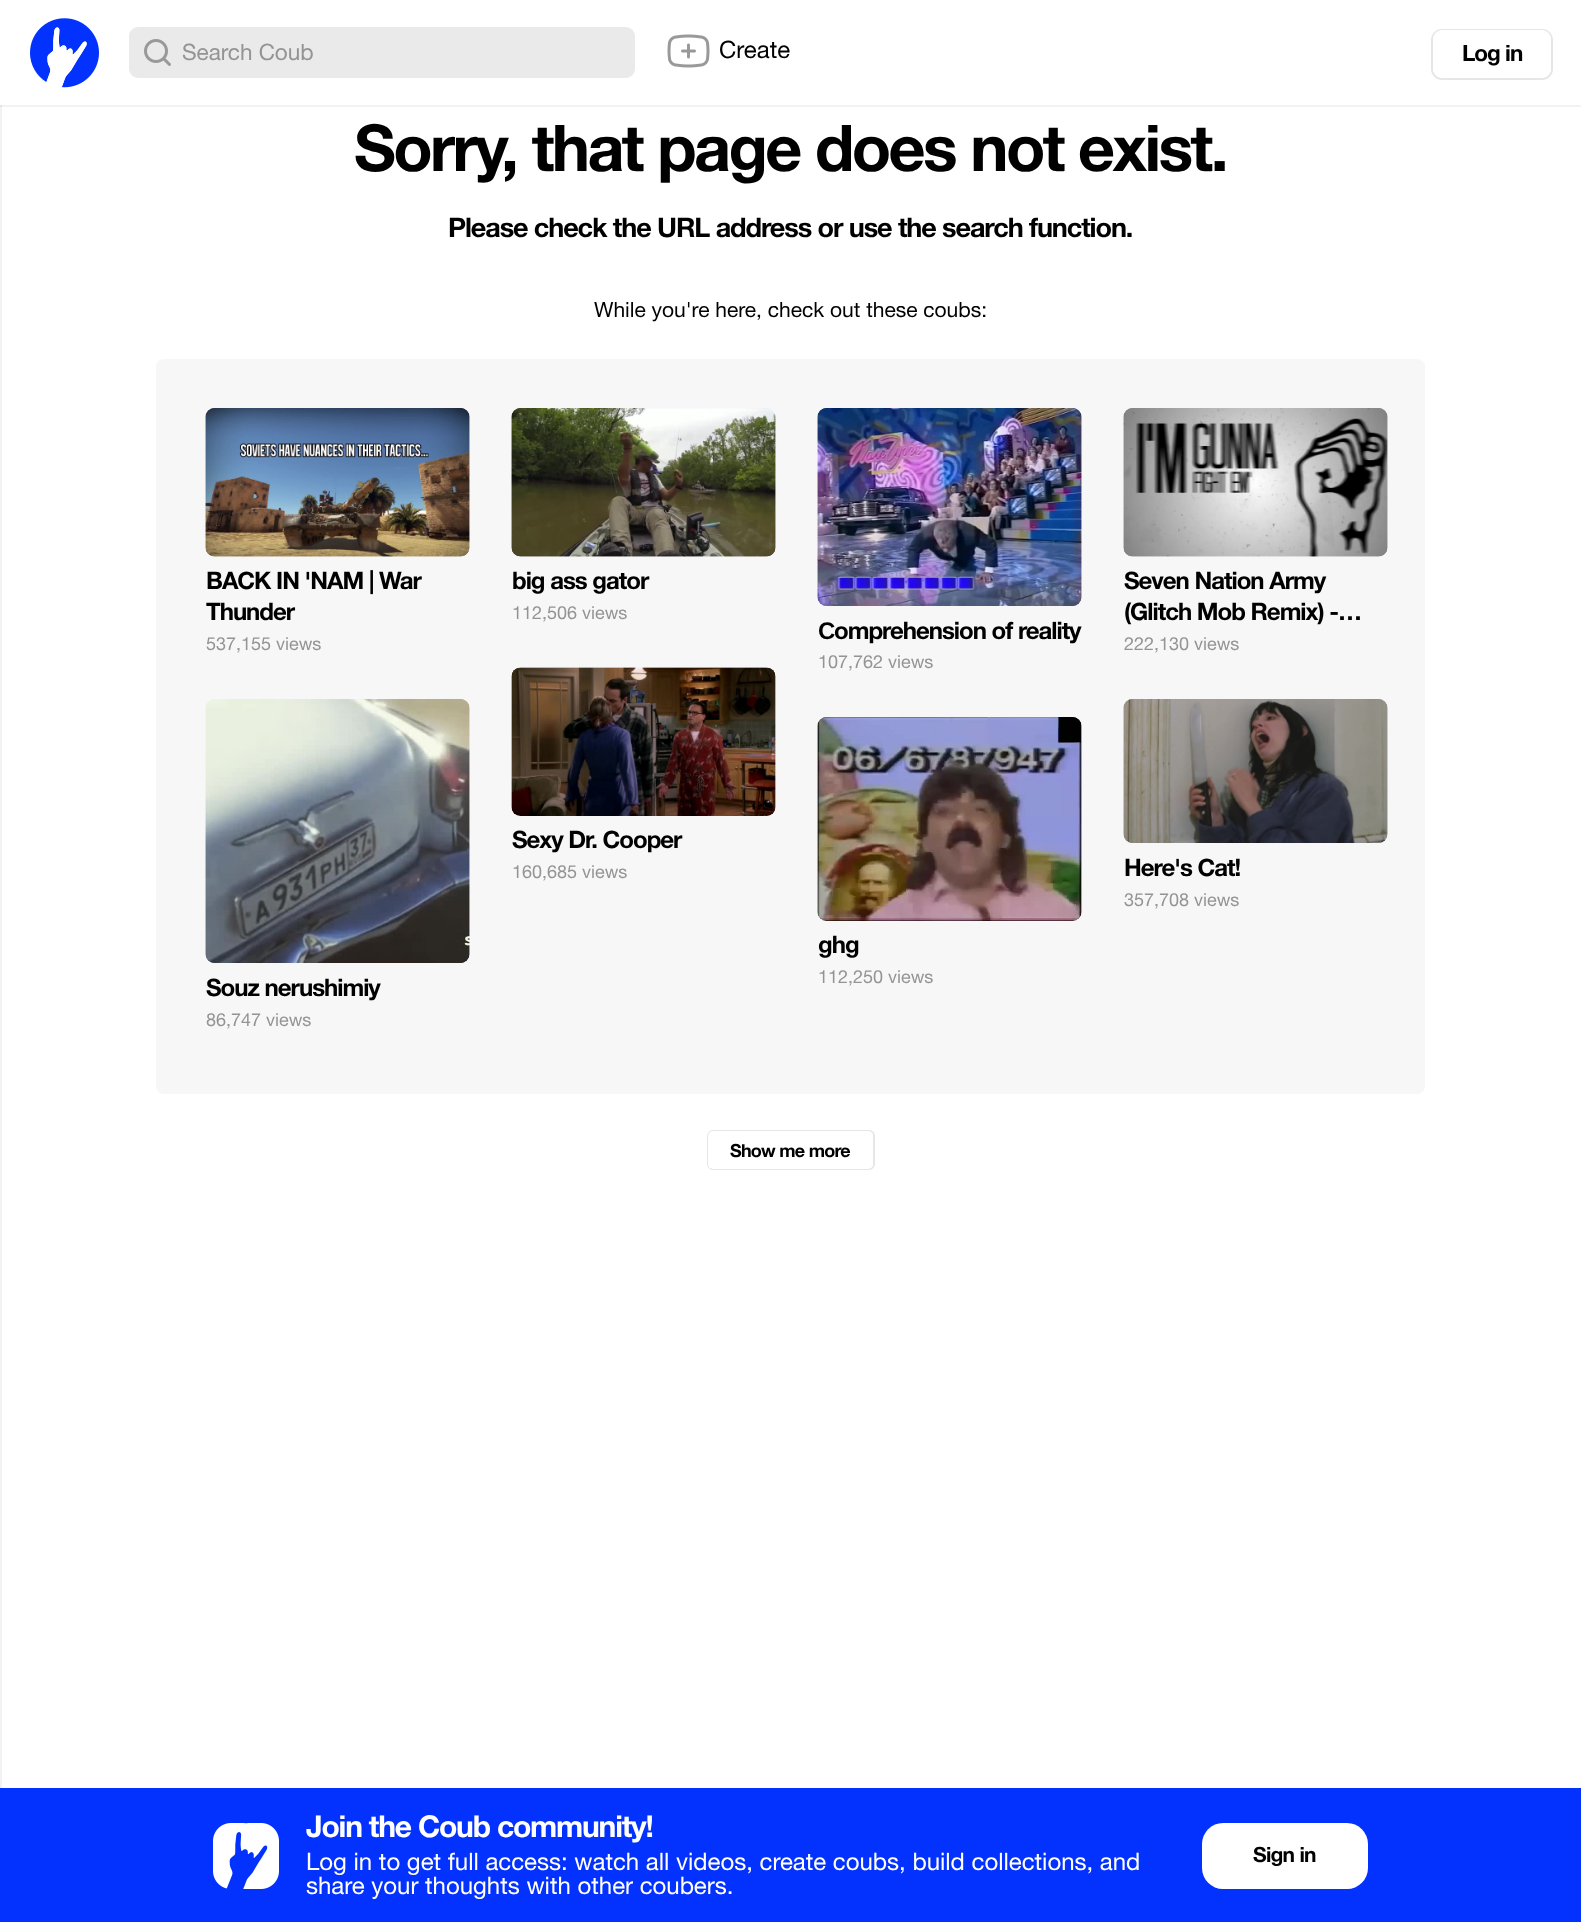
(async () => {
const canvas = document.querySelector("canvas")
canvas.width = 1581
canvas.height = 1922
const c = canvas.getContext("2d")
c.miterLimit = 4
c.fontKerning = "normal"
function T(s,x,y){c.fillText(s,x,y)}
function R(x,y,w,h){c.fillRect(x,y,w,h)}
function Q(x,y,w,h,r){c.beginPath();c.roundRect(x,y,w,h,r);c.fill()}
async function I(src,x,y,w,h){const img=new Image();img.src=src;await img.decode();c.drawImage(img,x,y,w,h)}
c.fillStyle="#fff"
R(0,0,1581,1922)
c.strokeStyle="#f2f2f2"
c.lineWidth=2
c.strokeRect(-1,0,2,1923)
c.fillStyle="#0000000d"
R(0,105,1581,2)
c.fillStyle="#fff"
R(0,0,2,105)
await I("1.png",30,18,69,70)
c.fillStyle="#eaeaea"
Q(129,27,506,51,9)
await I("2.png",144,39,27,27)
c.font="22.5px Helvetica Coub"
c.fillStyle="#949494"
T("Search Coub",182,60)
await I("3.png",667,34,43,34)
c.font="24px Helvetica Coub"
c.fillStyle="#000"
T("Create",719,58)
c.beginPath()
c.roundRect(1432,30,120,49,10)
c.strokeStyle="#e6e6e6"
c.stroke()
c.fillStyle="#fff"
Q(1433,30,118,48,9)
c.letterSpacing="-1px"
c.font="bold 22.5px Helvetica Coub"
c.fillStyle="#000"
T("Log in",1462,61)
c.letterSpacing="-2.6px"
c.font="bold 64.5px Helvetica Coub"
T("Sorry, that page does not exist.",354,171)
c.letterSpacing="-1.08px"
c.font="bold 27px Helvetica Coub"
T("Please check the URL address or use the search function.",448,237)
c.letterSpacing="0px"
c.font="21px Helvetica Coub"
T("While you're here, check out these coubs:",594,317)
c.fillStyle="#f7f7f7"
Q(156,359,1269,735,8)
await I("4.png",205,408,265,149)
await I("5.png",205,408,265,149)
c.letterSpacing="-1px"
c.font="bold 24px Helvetica Coub"
c.fillStyle="#000"
T("BACK IN 'NAM | War",206,589)
c.save()
c.beginPath()
c.rect(206,567,264,62)
c.clip()
T("Thunder",206,620)
c.restore()
c.letterSpacing="0px"
c.font="18px Helvetica Coub"
c.fillStyle="#949494"
T("537,155 views",206,650)
await I("6.png",511,408,265,149)
await I("7.png",511,408,265,149)
c.letterSpacing="-1px"
c.font="bold 24px Helvetica Coub"
c.fillStyle="#000"
T("big ass gator",512,589)
c.letterSpacing="0px"
c.font="18px Helvetica Coub"
c.fillStyle="#949494"
T("112,506 views",512,619)
await I("8.png",817,408,265,198)
await I("9.png",817,408,265,198)
c.letterSpacing="-1px"
c.font="bold 24px Liberation Sans"
c.fillStyle="#000"
T("С",818,639)
c.font="bold 24px Helvetica Coub"
T("omprehension of reality",834,639)
c.letterSpacing="0px"
c.font="18px Helvetica Coub"
c.fillStyle="#949494"
T("107,762 views",818,668)
await I("10.png",1123,408,265,149)
await I("11.png",1123,408,265,149)
c.letterSpacing="-1px"
c.font="bold 24px Helvetica Coub"
c.fillStyle="#000"
T("Seven Nation Army",1124,589)
T("(Glitch Mob Remix) -…",1124,620)
c.letterSpacing="0px"
c.font="18px Helvetica Coub"
c.fillStyle="#949494"
T("222,130 views",1124,650)
await I("12.png",511,667,265,149)
await I("13.png",511,667,265,148)
c.letterSpacing="-1px"
c.font="bold 24px Helvetica Coub"
c.fillStyle="#000"
T("Sexy Dr. Cooper",512,848)
c.letterSpacing="0px"
c.font="18px Helvetica Coub"
c.fillStyle="#949494"
T("160,685 views",512,878)
await I("14.png",1123,699,265,144)
await I("15.png",1123,699,265,144)
c.letterSpacing="-1px"
c.font="bold 24px Helvetica Coub"
c.fillStyle="#000"
T("Here's Cat!",1124,876)
c.letterSpacing="0px"
c.font="18px Helvetica Coub"
c.fillStyle="#949494"
T("357,708 views",1124,906)
await I("16.png",817,717,265,204)
await I("17.png",817,717,265,203)
c.letterSpacing="-1px"
c.font="bold 24px Helvetica Coub"
c.fillStyle="#000"
T("ghg",818,953)
c.letterSpacing="0px"
c.font="18px Helvetica Coub"
c.fillStyle="#949494"
T("112,250 views",818,983)
await I("18.png",205,699,265,264)
await I("19.png",205,699,265,264)
c.letterSpacing="-1px"
c.font="bold 24px Helvetica Coub"
c.fillStyle="#000"
T("Souz nerushimiy",206,996)
c.letterSpacing="0px"
c.font="18px Helvetica Coub"
c.fillStyle="#949494"
T("86,747 views",206,1026)
c.beginPath()
c.roundRect(708,1131,166,38,5)
c.stroke()
c.fillStyle="#fff"
Q(708,1131,165,38,5)
c.letterSpacing="-0.75px"
c.font="bold 18px Helvetica Coub"
c.fillStyle="#000"
T("Show me more",730,1157)
c.fillStyle="#0332ff"
R(0,1788,1581,134)
await I("20.png",213,1823,66,66)
c.letterSpacing="-1.2px"
c.font="bold 30px Helvetica Coub"
c.fillStyle="#fff"
T("Join the Coub community!",306,1837)
c.letterSpacing="0px"
c.font="24px Helvetica Coub"
T("Log in to get full access: watch all videos, create coubs, build collections, and",306,1870)
T("share your thoughts with other coubers.",306,1894)
Q(1202,1823,166,66,21)
c.letterSpacing="-0.75px"
c.font="bold 21px Helvetica Coub"
c.fillStyle="#000"
T("Sign in",1253,1862)
})()
